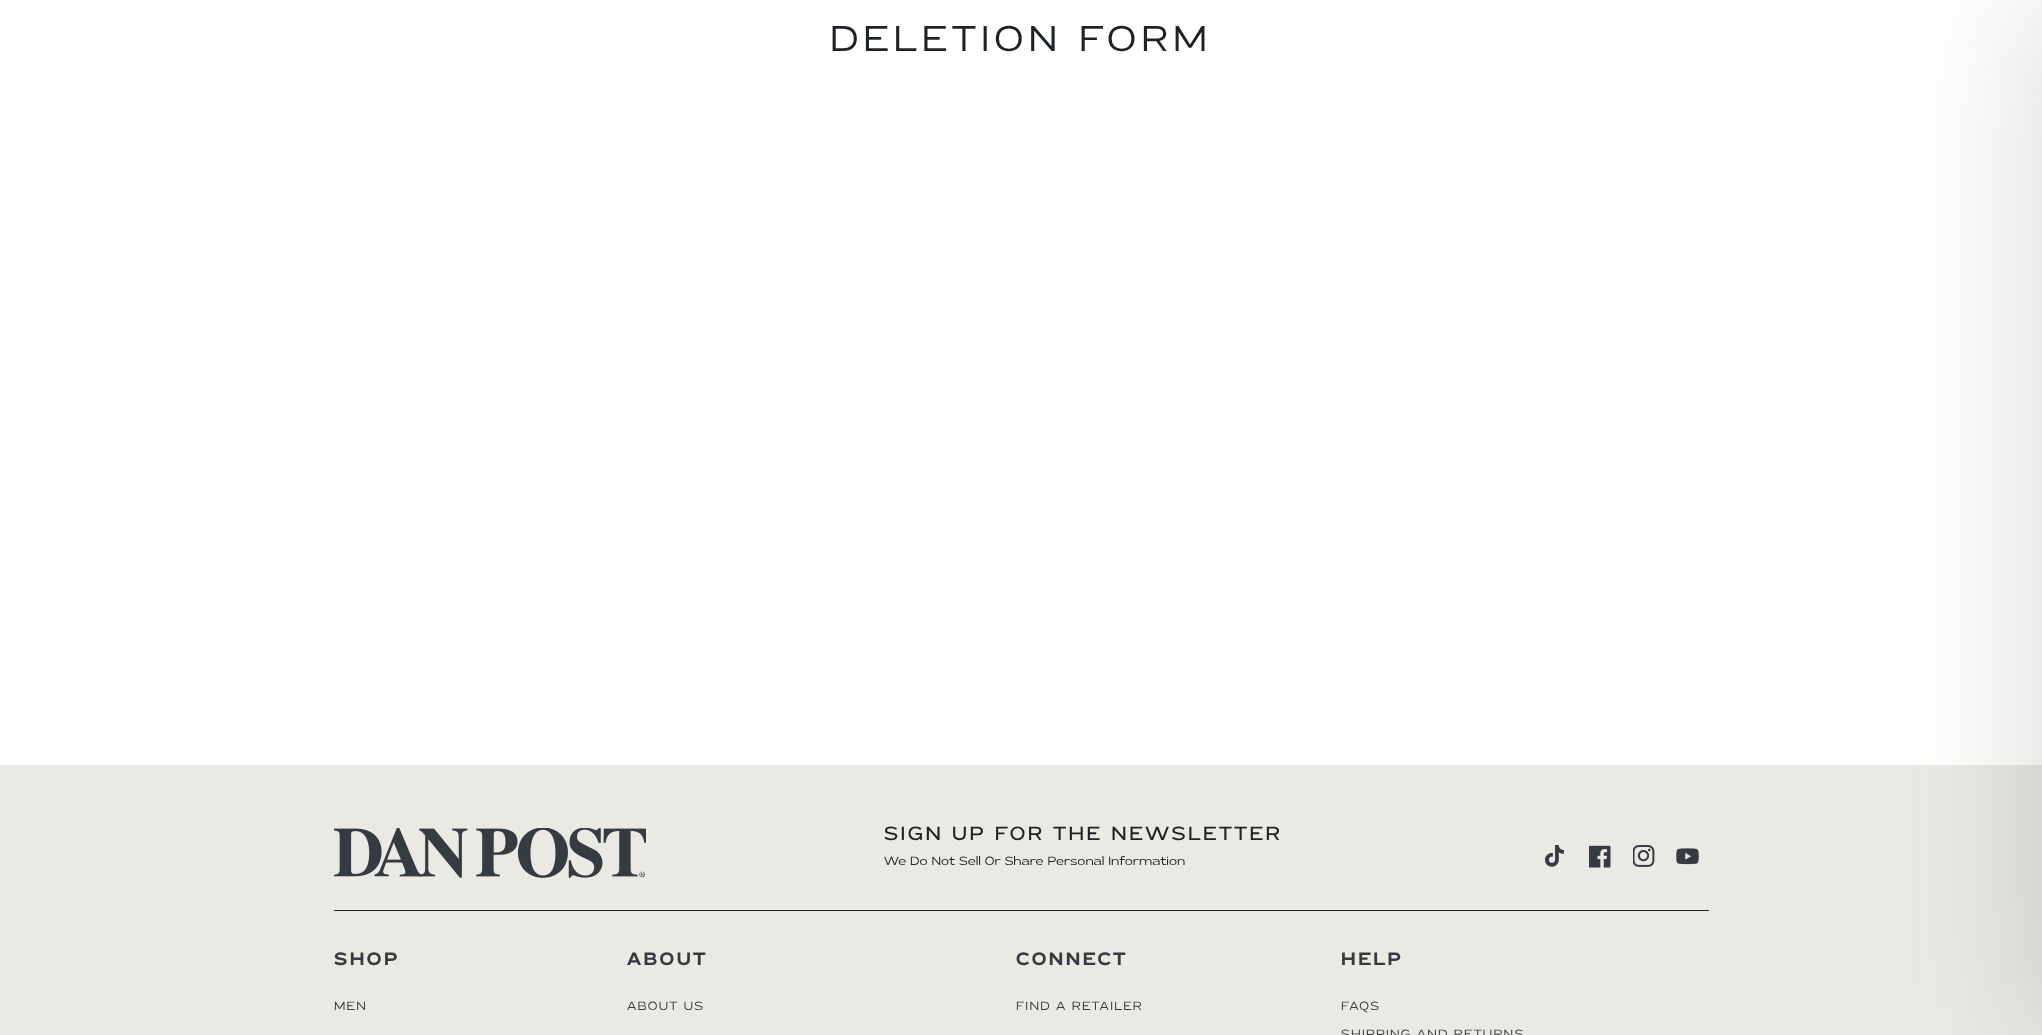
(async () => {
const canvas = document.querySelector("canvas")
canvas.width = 2042
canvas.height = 1035
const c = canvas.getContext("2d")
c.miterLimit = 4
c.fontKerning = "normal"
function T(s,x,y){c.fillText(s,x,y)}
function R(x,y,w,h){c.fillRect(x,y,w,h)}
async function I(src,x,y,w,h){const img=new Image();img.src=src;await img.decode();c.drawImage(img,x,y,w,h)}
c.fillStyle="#fff"
R(0,0,2042,1035)
c.letterSpacing="5px"
c.font="37.5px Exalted"
c.fillStyle="#1c2226"
T("DELETION FORM",830,51)
c.fillStyle="#eae9e4"
R(0,765,2042,270)
c.fillStyle="#3a382a33"
c.filter="blur(75px)"
c.beginPath()
c.rect(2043,0,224,1035)
c.fill()
c.filter="none"
c.fillStyle="#1c2226"
R(334,910,1375,1)
await I("1.png",334,828,312,50)
c.letterSpacing="2.5px"
c.font="500 20px Exalted"
T("SIGN UP FOR THE NEWSLETTER",884,840)
c.letterSpacing="0px"
c.font="12.5px Exalted"
T("We Do Not Sell Or Share Personal Information",884,865)
await I("2.png",1545,845,19,22)
await I("3.png",1589,845,22,23)
await I("4.png",1633,845,22,22)
await I("5.png",1676,848,23,17)
c.letterSpacing="2.5px"
c.font="bold 18.75px Exalted"
c.fillStyle="#353b41"
T("SHOP",334,965)
c.letterSpacing="1.25px"
c.font="12.5px Exalted"
T("MEN",334,1010)
c.letterSpacing="2.5px"
c.font="bold 18.75px Exalted"
T("ABOUT",627,965)
c.letterSpacing="1.25px"
c.font="12.5px Exalted"
T("ABOUT US",627,1010)
c.letterSpacing="2.5px"
c.font="bold 18.75px Exalted"
T("CONNECT",1016,965)
c.letterSpacing="1.25px"
c.font="12.5px Exalted"
T("FIND A RETAILER",1016,1010)
c.letterSpacing="2.5px"
c.font="bold 18.75px Exalted"
T("HELP",1341,965)
c.letterSpacing="1.25px"
c.font="12.5px Exalted"
T("FAQS",1341,1010)
T("SHIPPING AND RETURNS",1341,1038)
})()
